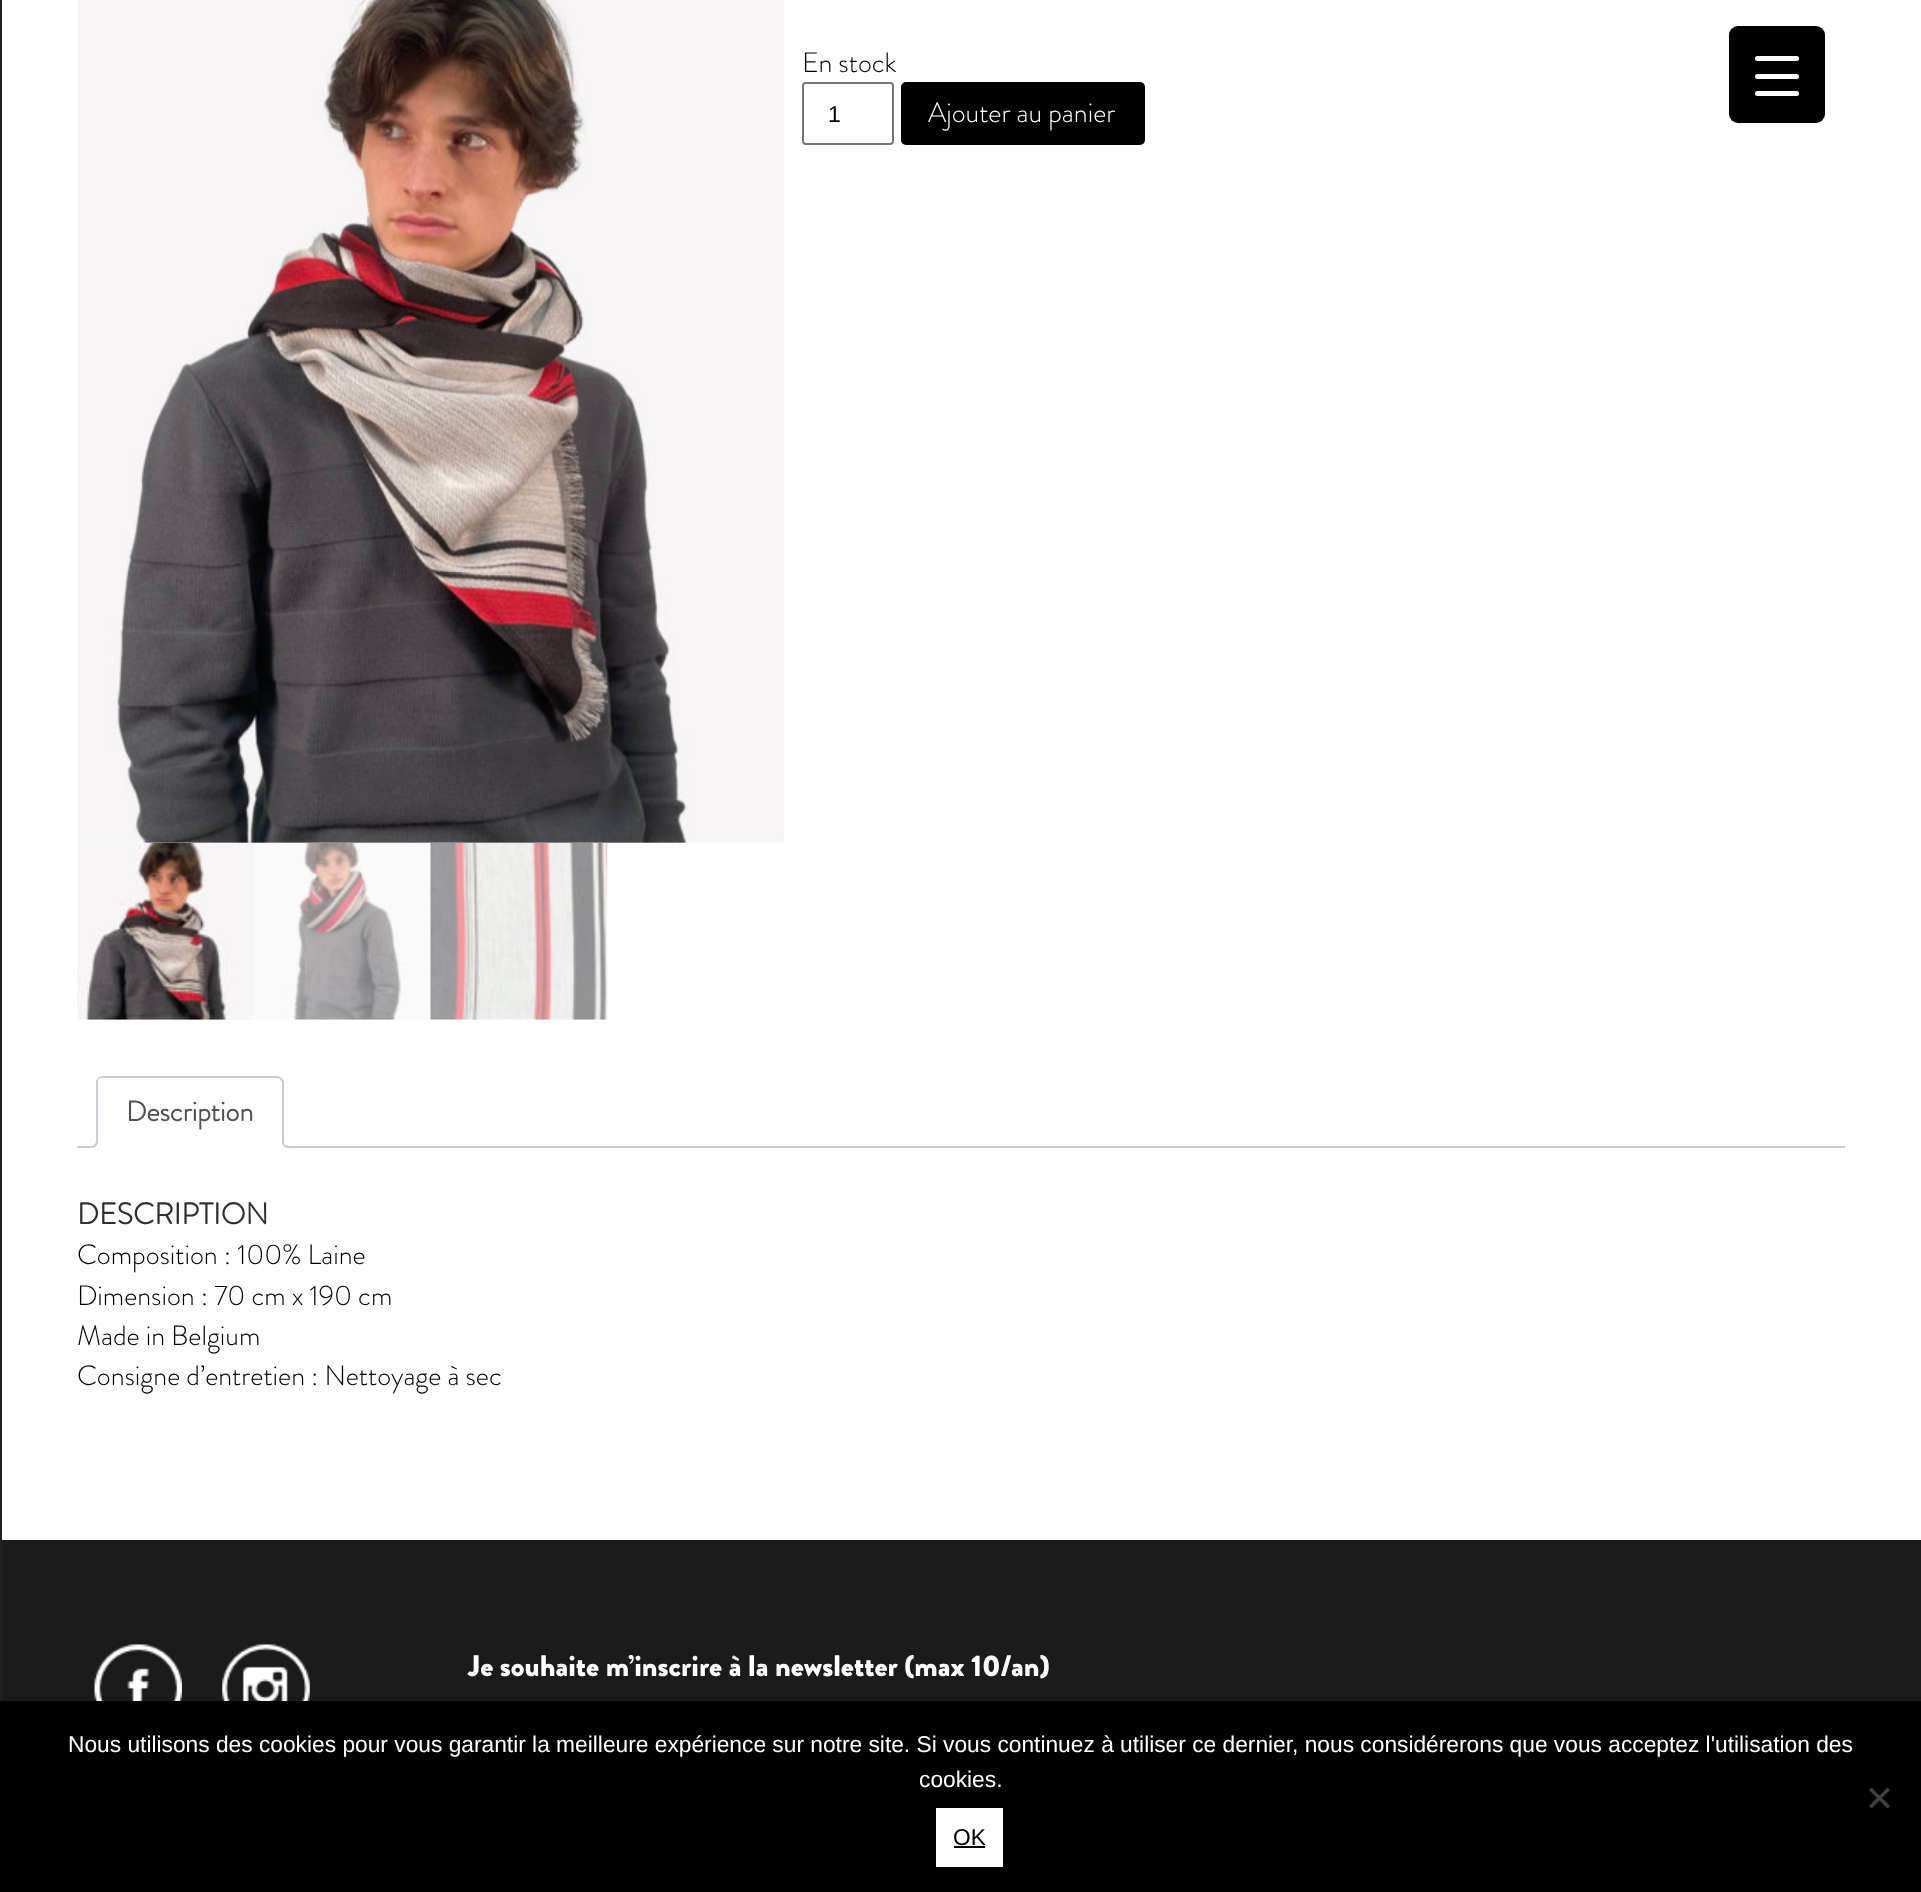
(async () => {
const canvas = document.querySelector("canvas")
canvas.width = 1921
canvas.height = 1892
const c = canvas.getContext("2d")
c.miterLimit = 4
c.fontKerning = "normal"
function T(s,x,y){c.fillText(s,x,y)}
function R(x,y,w,h){c.fillRect(x,y,w,h)}
function Q(x,y,w,h,r){c.beginPath();c.roundRect(x,y,w,h,r);c.fill()}
async function I(src,x,y,w,h){const img=new Image();img.src=src;await img.decode();c.drawImage(img,x,y,w,h)}
let path
c.fillStyle="#fff"
R(0,0,1921,1892)
await I("1.png",77,0,707,843)
await I("2.png",77,843,177,177)
await I("3.png",254,843,176,177)
await I("4.png",430,843,178,177)
c.font="300 28px Brandon Grotesque"
c.fillStyle="#000"
T("En stock",802,72)
c.beginPath()
c.roundRect(803,83,90,61,3)
c.strokeStyle="#767676"
c.lineWidth=2
c.stroke()
c.font="23px Liberation Sans"
T("1",828,122)
Q(901,82,244,63,5)
c.font="300 28px Brandon Grotesque"
c.fillStyle="#fff"
T("Ajouter au panier",928,122)
c.fillStyle="#cfc8d8"
R(77,1146,1768,2)
c.fillStyle="#fff"
c.beginPath()
c.roundRect(96,1076,188,72,[7,7,0,0])
c.fill()
c.fillStyle="#cfc8d8"
path = new Path2D("M103 1078c-1 0-3 0-4 1l-1-1l3-2h177l4 2l-2 1c-1 0-2-1-4-1z")
c.fill(path)
path = new Path2D("M284 1081v67l-2-2v-64l-2-3l2-1z")
c.fill(path)
c.fillStyle="#fff"
path = new Path2D("M284 1148l-2-2h-184l-2 2z")
c.fill(path)
c.fillStyle="#cfc8d8"
path = new Path2D("M96 1148v-67l2-3l1 1c-1 1-1 3-1 4v63z")
c.fill(path)
c.font="bold 28px Brandon Grotesque"
c.fillStyle="#515151"
T("Description",126,1121)
c.save()
c.beginPath()
c.rect(77,1076,1768,72)
c.clip()
c.fillStyle="#fff"
path = new Path2D("M93 1147.5v4.5c6.5 0 9-2.5 9-9h-4.5c-.5 2.5-2 4-4.5 4.5z")
c.fill(path)
c.restore()
c.fillStyle="#cfc8d8"
path = new Path2D("M89 1139h9c0 6.5-2.5 9-9 9zm0 0h7c0 5.5-1.5 7-7 7z")
c.fill(path,"evenodd")
c.save()
c.beginPath()
c.rect(77,1076,1768,72)
c.clip()
c.fillStyle="#fff"
path = new Path2D("M278 1143c0 6.5 2.5 9 9 9v-4c-2.5-1-4.5-2.5-5-5z")
c.fill(path)
c.restore()
path = new Path2D("M282 1139h8.5v9c-4.5 0-8.5-1.5-8.5-7zm1.5 0h7v7c-3.5 0-7-.5-7-5z")
c.fill(path,"evenodd")
c.font="bold 29.75px Brandon Grotesque"
c.fillStyle="#303030"
T("DESCRIPTION",77,1224)
c.font="300 28px Brandon Grotesque"
c.fillStyle="#000"
T("Composition : 100% Laine",77,1264)
T("Dimension : 70 cm x 190 cm",77,1305)
T("Made in Belgium",77,1345)
T("Consigne d’entretien : Nettoyage à sec",77,1385)
c.fillStyle="#1b1b1b"
R(2,1540,1919,161)
c.fillStyle="#212121"
R(0,0,2,1701)
c.fillStyle="#000"
Q(1729,26,96,97,9)
c.fillStyle="#fff"
Q(1755,74,44,5,2.5)
Q(1755,56,44,5,2.5)
Q(1755,91,44,5,2.5)
await I("5.png",94,1644,88,57)
await I("6.png",222,1644,88,57)
c.font="900 29.75px Brandon Grotesque"
T("Je souhaite m’inscrire à la newsletter (max 10/an)",468,1676)
c.fillStyle="#000"
R(0,1701,1921,191)
c.font="22.75px Liberation Sans"
c.fillStyle="#fff"
T("Nous utilisons des cookies pour vous garantir la meilleure expérience sur notre site. Si vous continuez à utiliser ce dernier, nous considérerons que vous acceptez l'utilisation des",68,1752)
T("cookies.",919,1787)
c.fillStyle="#404040"
path = new Path2D("M1887.5 1787.5l2.5 2.5l-18.5 18.5l-2.5-2.5z")
c.fill(path)
path = new Path2D("M1869 1790l2.5-2.5l18.5 18.5l-2.5 2.5z")
c.fill(path)
c.fillStyle="#fff"
R(936,1808,67,59)
c.fillStyle="#000"
T("OK",953,1845)
R(954,1846,31,2)
})()
